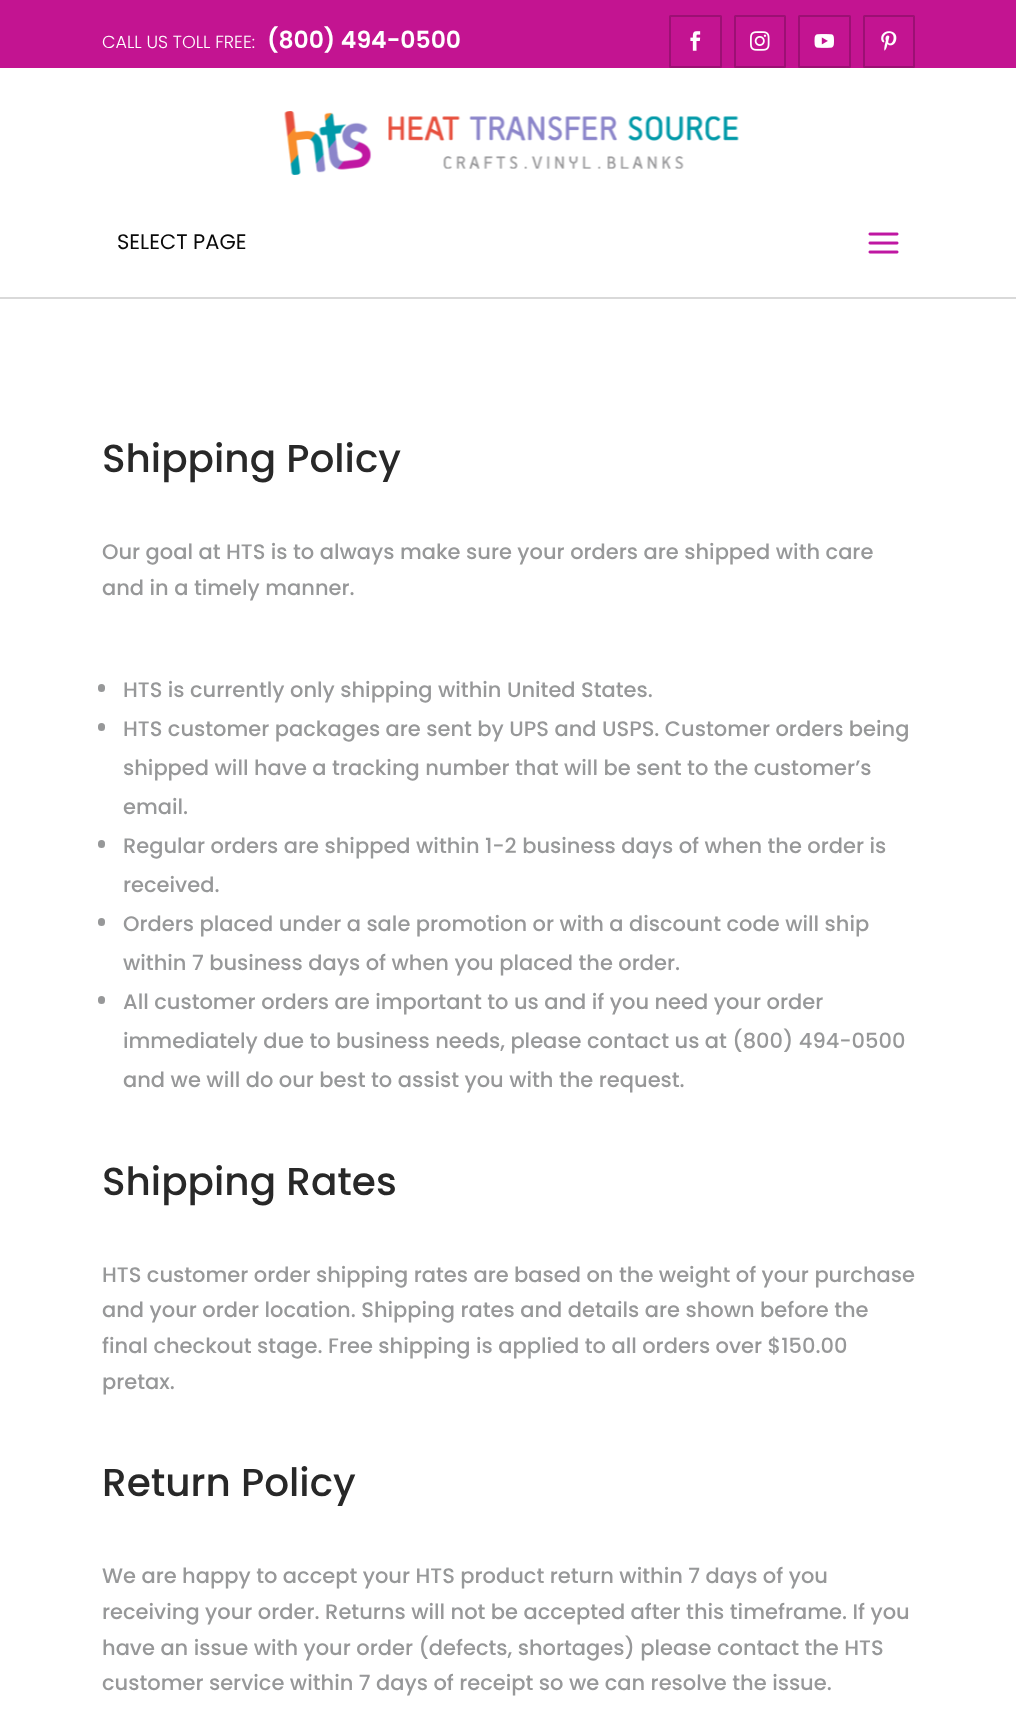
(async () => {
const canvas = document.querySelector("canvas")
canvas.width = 1016
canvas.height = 1717
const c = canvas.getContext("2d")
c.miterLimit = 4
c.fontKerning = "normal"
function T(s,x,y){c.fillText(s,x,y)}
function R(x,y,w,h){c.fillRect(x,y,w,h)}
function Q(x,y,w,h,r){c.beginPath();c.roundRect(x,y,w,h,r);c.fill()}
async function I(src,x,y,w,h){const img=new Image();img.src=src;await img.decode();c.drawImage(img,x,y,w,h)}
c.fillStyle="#fff"
R(0,0,1016,1717)
c.fillStyle="#c31491"
R(0,0,1016,68)
c.font="300 17.5px Poppins"
c.fillStyle="#fff"
T("CALL US TOLL FREE:",102,48)
c.font="600 23.5px Poppins"
T("(800) 494-0500",267,48)
c.beginPath()
c.roundRect(670,16,51,51,.5)
c.strokeStyle="#9c1074"
c.lineWidth=2
c.stroke()
await I("1.png",690,31,11,20)
c.beginPath()
c.roundRect(735,16,50,51,.5)
c.stroke()
await I("2.png",750,31,20,20)
c.beginPath()
c.roundRect(799,16,51,51,.5)
c.stroke()
await I("3.png",814,34,20,14)
c.beginPath()
c.roundRect(864,16,50,51,.5)
c.stroke()
await I("4.png",881,31,16,20)
c.fillStyle="#d9d9d9"
R(0,297,1016,2)
await I("5.png",284,111,455,64)
c.font="21px Poppins"
c.fillStyle="#0a0a0a"
T("SELECT PAGE",117,249)
await I("6.png",868,232,31,22)
c.font="500 39px Poppins"
c.fillStyle="#282828"
T("Shipping Policy",102,472)
c.font="500 21px Poppins"
c.fillStyle="#979899"
T("Our goal at HTS is to always make sure your orders are shipped with care",102,559)
T("and in a timely manner.",102,595)
Q(98,684,7,8,3.5)
T("HTS is currently only shipping within United States.",123,697)
Q(98,723,7,8,3.5)
T("HTS customer packages are sent by UPS and USPS. Customer orders being",123,736)
T("shipped will have a tracking number that will be sent to the customer’s",123,775)
T("email.",123,814)
Q(98,840,7,8,3.5)
T("Regular orders are shipped within 1-2 business days of when the order is",123,853)
T("received.",123,892)
Q(98,918,7,8,3.5)
T("Orders placed under a sale promotion or with a discount code will ship",123,931)
T("within 7 business days of when you placed the order.",123,970)
Q(98,996,7,8,3.5)
T("All customer orders are important to us and if you need your order",123,1009)
T("immediately due to business needs, please contact us at (800) 494-0500",123,1048)
T("and we will do our best to assist you with the request.",123,1087)
c.font="500 39px Poppins"
c.fillStyle="#282828"
T("Shipping Rates",102,1195)
c.font="500 21px Poppins"
c.fillStyle="#979899"
T("HTS customer order shipping rates are based on the weight of your purchase",102,1282)
T("and your order location. Shipping rates and details are shown before the",102,1317)
T("final checkout stage. Free shipping is applied to all orders over $150.00",102,1353)
T("pretax.",102,1389)
c.font="500 39px Poppins"
c.fillStyle="#282828"
T("Return Policy",102,1496)
c.font="500 21px Poppins"
c.fillStyle="#979899"
T("We are happy to accept your HTS product return within 7 days of you",102,1583)
T("receiving your order. Returns will not be accepted after this timeframe. If you",102,1619)
T("have an issue with your order (defects, shortages) please contact the HTS",102,1655)
T("customer service within 7 days of receipt so we can resolve the issue.",102,1690)
})()
